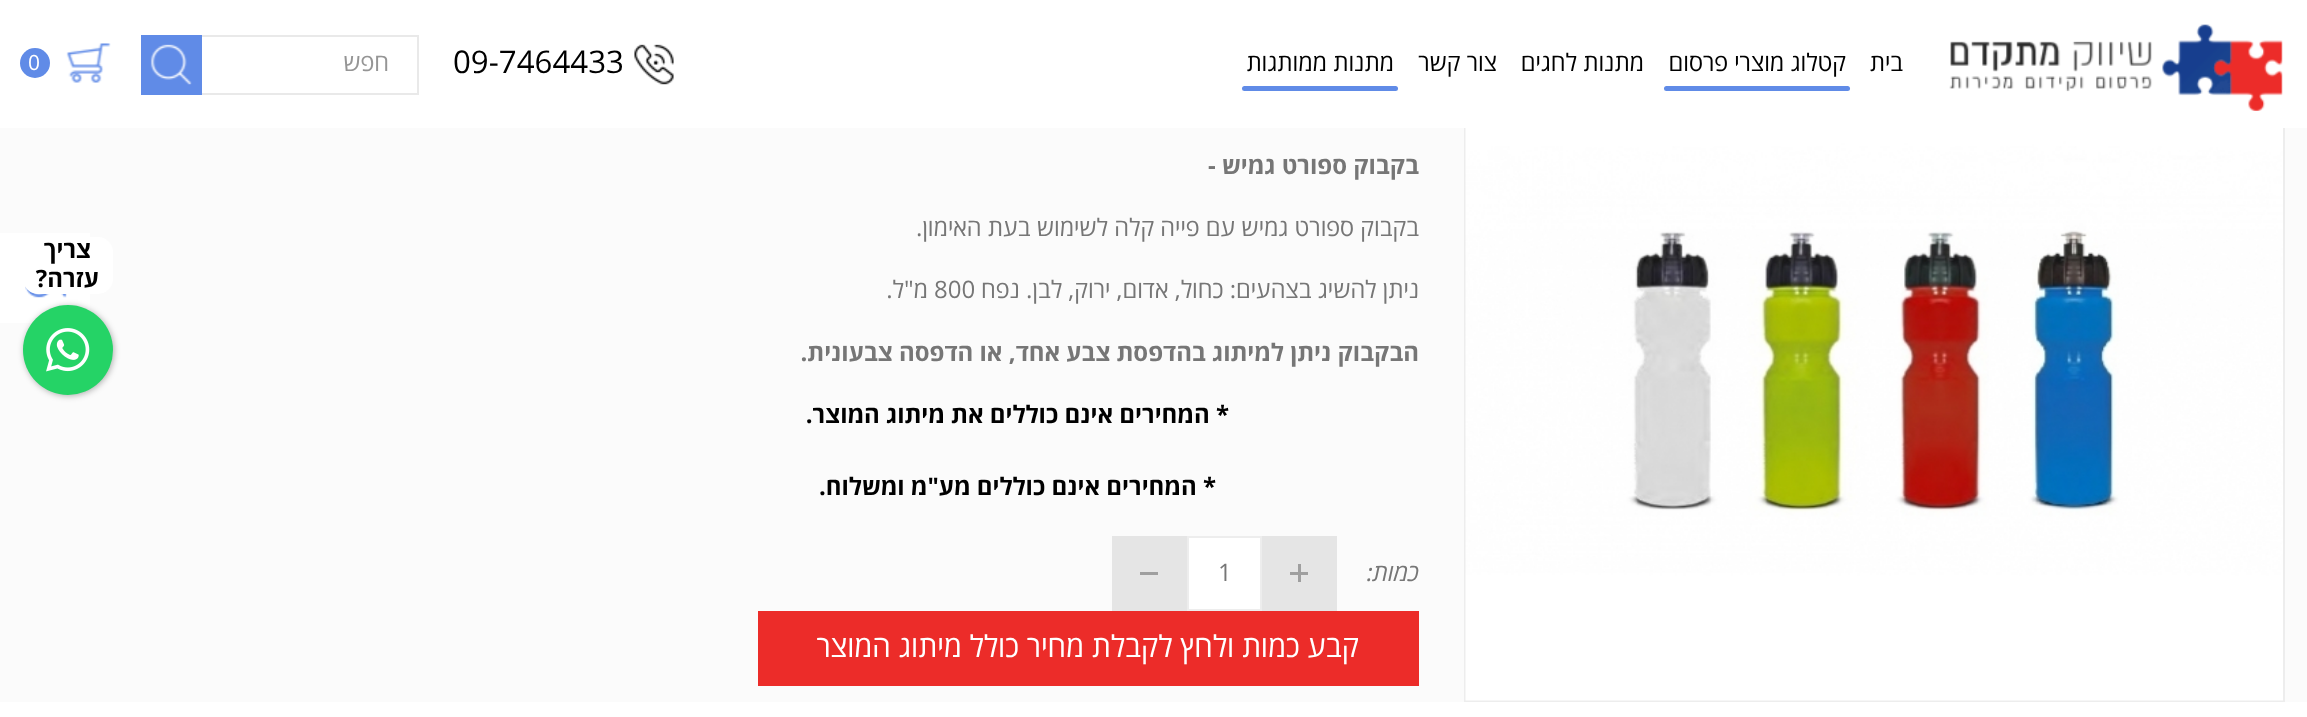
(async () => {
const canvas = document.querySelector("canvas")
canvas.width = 2307
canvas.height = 717
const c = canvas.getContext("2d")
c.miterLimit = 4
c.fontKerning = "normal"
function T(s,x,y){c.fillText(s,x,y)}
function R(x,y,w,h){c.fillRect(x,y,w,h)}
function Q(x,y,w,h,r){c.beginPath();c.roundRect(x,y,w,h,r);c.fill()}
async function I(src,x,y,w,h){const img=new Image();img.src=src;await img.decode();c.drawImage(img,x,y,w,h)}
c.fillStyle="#fbfbfb"
R(0,0,2307,717)
c.strokeStyle="#ededed"
c.lineWidth=2
c.strokeRect(1465,19,819,682)
c.fillStyle="#fff"
R(0,0,2307,128)
await I("1.png",1949,24,334,87)
c.direction="rtl"
c.font="24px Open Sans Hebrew"
c.fillStyle="#000"
T("בית",1903,71)
T("קטלוג מוצרי פרסום",1846,71)
c.fillStyle="#608be7"
Q(1664,86,186,5,2.5)
c.fillStyle="#000"
T("מתנות לחגים",1644,71)
T("צור קשר",1497,71)
T("מתנות ממותגות",1394,71)
c.fillStyle="#608be7"
Q(1242,86,156,5,2.5)
await I("2.png",634,44,40,41)
c.direction="ltr"
c.font="31.25px Open Sans Hebrew"
c.fillStyle="#000"
T("09-7464433",453,73)
c.strokeStyle="#e9e9e9"
c.strokeRect(142,36,276,58)
c.direction="rtl"
c.font="24px Open Sans Hebrew"
c.fillStyle="#959595"
T("חפש",389,71)
c.fillStyle="#608be7"
R(141,35,61,60)
await I("3.png",150,44,42,41)
await I("4.png",66,43,45,40)
c.beginPath()
c.arc(35,63,15,0,7)
c.fill()
c.direction="ltr"
c.font="21px Open Sans Hebrew"
c.fillStyle="#fff"
T("0",28,70)
await I("5.png",1465,128,818,573)
c.direction="rtl"
c.font="bold 24px Open Sans Hebrew"
c.fillStyle="#767676"
T("בקבוק ספורט גמיש -",1419,174)
c.font="24px Open Sans Hebrew"
T("בקבוק ספורט גמיש עם פייה קלה לשימוש בעת האימון.",1419,236)
T("ניתן להשיג בצהעים: כחול, אדום, ירוק, לבן. נפח",1419,298)
c.direction="ltr"
T("800",934,298)
c.direction="rtl"
T("מ\"ל.",928,298)
c.font="bold 24px Open Sans Hebrew"
T("הבקבוק ניתן למיתוג בהדפסת צבע אחד, או הדפסה צבעונית.",1419,361)
c.fillStyle="#000"
T("* המחירים אינם כוללים את מיתוג המוצר.",1229,423)
T("* המחירים אינם כוללים מע\"מ ומשלוח.",1216,495)
c.font="italic 24px Open Sans Hebrew"
c.fillStyle="#767676"
T("כמות:",1419,581)
c.fillStyle="#e5e5e5"
R(1262,536,75,75)
c.fillStyle="#9f9f9f"
R(1290,572,18,3)
R(1298,564,3,18)
c.fillStyle="#fff"
c.beginPath()
c.rect(1188,537,73,73)
c.fill()
c.strokeStyle="#ededed"
c.stroke()
c.direction="ltr"
c.font="24px Open Sans Hebrew"
c.fillStyle="#767676"
T("1",1218,581)
c.fillStyle="#e5e5e5"
R(1112,536,75,75)
c.fillStyle="#9f9f9f"
R(1140,572,18,3)
c.fillStyle="#ec2c29"
R(758,611,661,75)
c.direction="rtl"
c.font="30px Open Sans Hebrew"
c.fillStyle="#fff"
T("קבע כמות ולחץ לקבלת מחיר כולל מיתוג המוצר",1359,657)
R(0,233,90,90)
await I("6.png",25,286,42,12)
c.fillStyle="#0000004d"
c.filter="blur(3px)"
c.beginPath()
c.roundRect(24,306,90,90,45)
c.fill()
c.filter="none"
c.fillStyle="#25d366"
c.beginPath()
c.arc(68,350,45,0,7)
c.fill()
c.fillStyle="#fff"
Q(23,237,90,57,15)
c.font="bold 24px Open Sans Hebrew"
c.fillStyle="#000"
T("צריך",91,258)
T("עזרה?",99,287)
await I("7.png",46,328,44,44)
c.fillStyle="#fff"
R(0,702,2307,15)
})()
